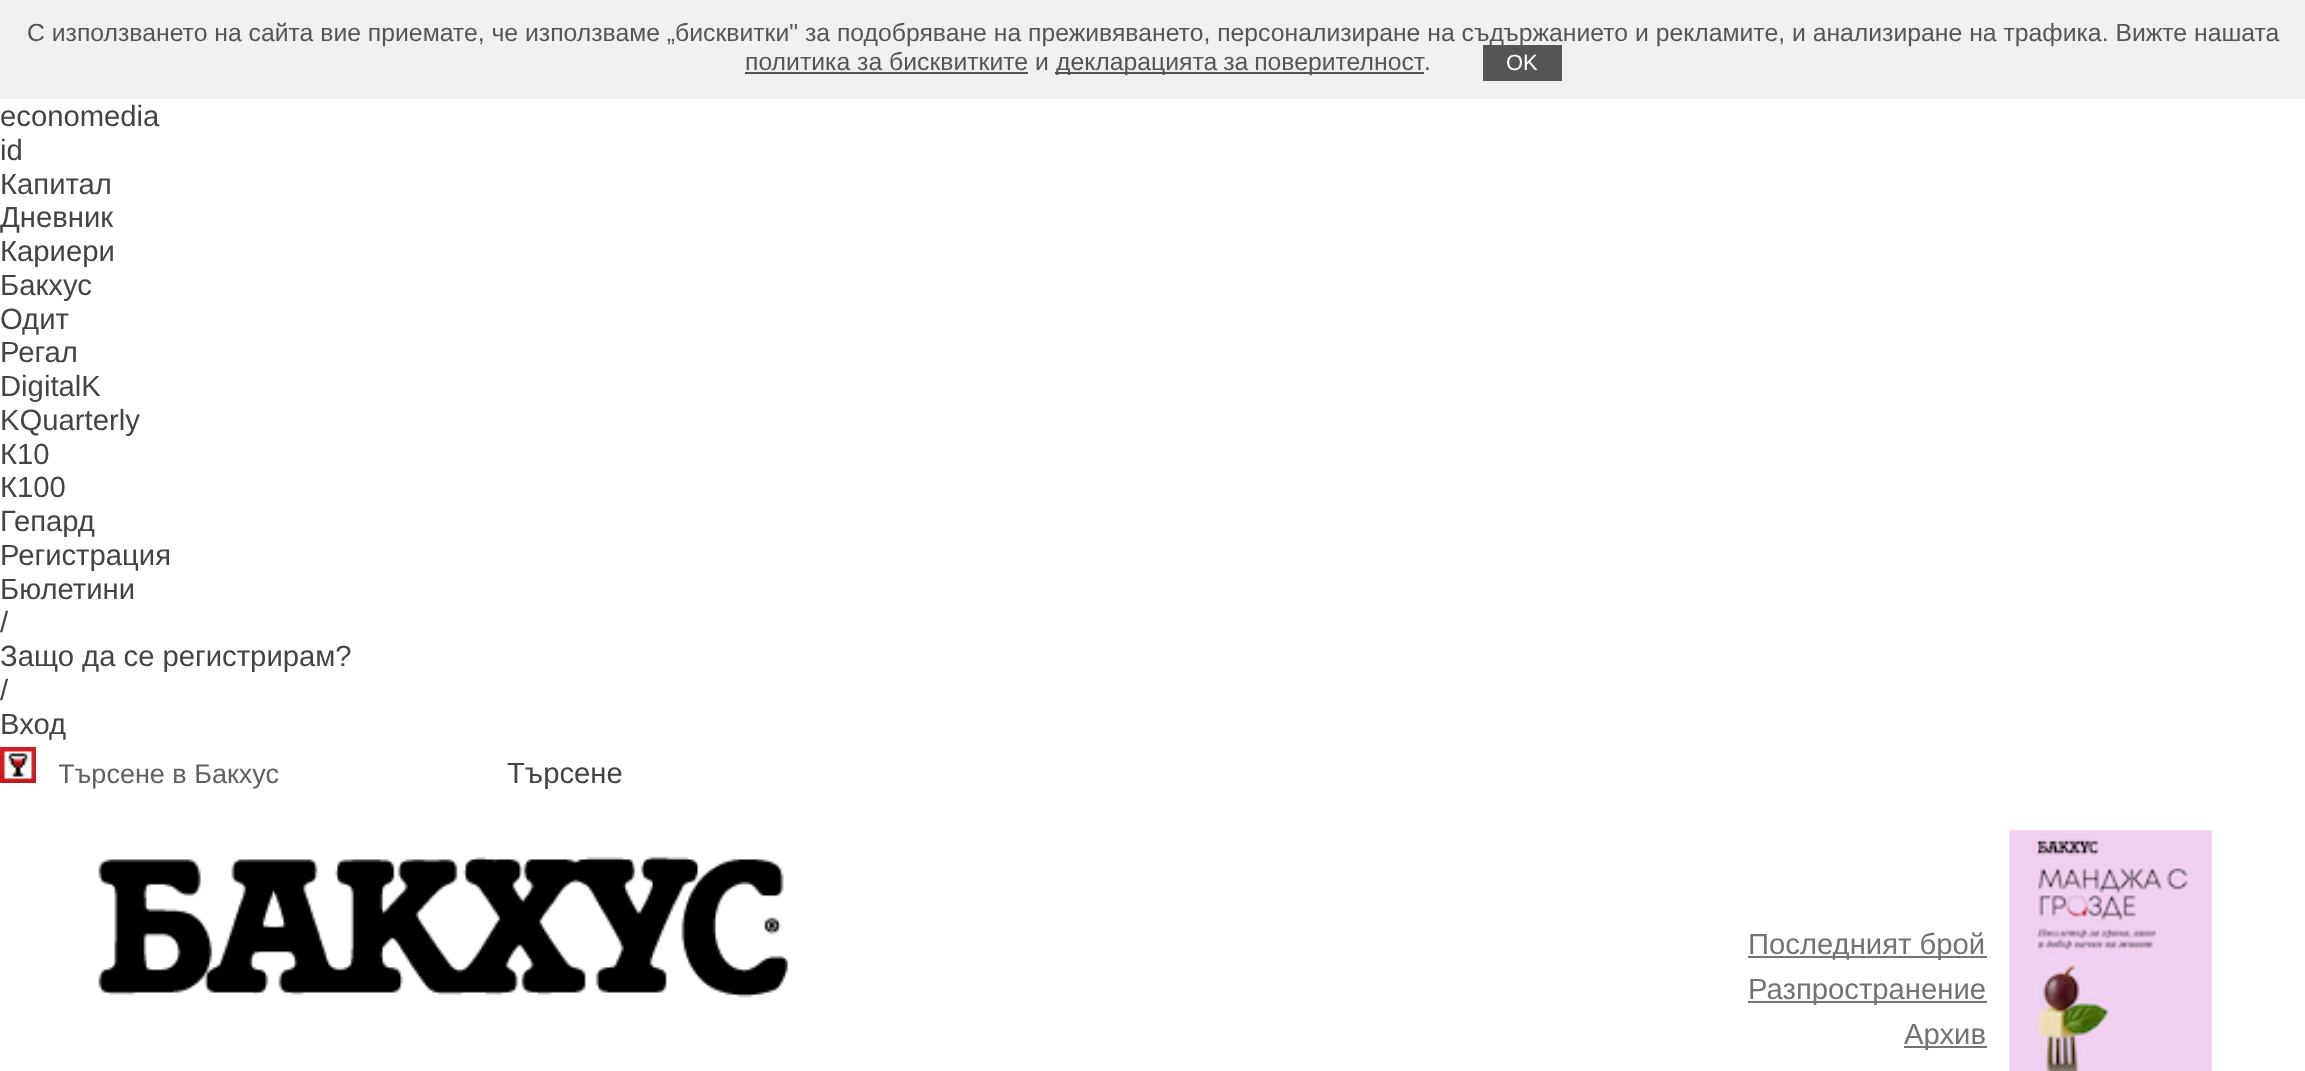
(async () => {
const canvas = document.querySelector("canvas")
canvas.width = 2305
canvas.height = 1071
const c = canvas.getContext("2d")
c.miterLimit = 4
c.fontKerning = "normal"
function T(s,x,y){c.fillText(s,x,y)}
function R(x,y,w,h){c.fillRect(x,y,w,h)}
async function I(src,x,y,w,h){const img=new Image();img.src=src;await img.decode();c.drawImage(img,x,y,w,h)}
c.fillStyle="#fff"
R(0,0,2305,1071)
c.fillStyle="#f0f0f0"
R(0,0,2305,99)
c.font="24.75px Liberation Sans"
c.fillStyle="#555"
T("С използването на сайта вие приемате, че използваме „бисквитки\" за подобряване на преживяването, персонализиране на съдържанието и рекламите, и анализиране на трафика. Вижте нашата",27,41)
T("политика за бисквитките и",745,70)
R(745,72,283,2)
R(1055,72,369,2)
c.wordSpacing="-1px"
T("декларацията за поверителност",1056,70)
c.wordSpacing="0px"
T(".",1424,70)
R(1483,45,79,36)
c.font="22px Liberation Sans"
c.fillStyle="#fff"
T("ОK",1506,70)
c.font="29.25px Liberation Sans"
c.fillStyle="#444"
T("economedia",0,126)
T("id",0,160)
T("Капитал",0,194)
T("Дневник",0,227)
T("Кариери",0,261)
T("Бакхус",0,295)
T("Одит",0,329)
T("Регал",0,362)
T("DigitalK",0,396)
T("KQuarterly",0,430)
T("К10",0,464)
T("К100",0,497)
T("Гепард",0,531)
T("Регистрация",0,565)
T("Бюлетини",0,599)
T("/",0,632)
T("Защо да се регистрирам?",0,666)
T("/",0,700)
T("Вход",0,734)
await I("1.png",0,747,36,36)
c.save()
c.beginPath()
c.rect(59,758,427,32)
c.clip()
c.font="27px Liberation Sans"
c.fillStyle="#616161"
T("Търсене в Бакхус",58,783)
c.restore()
T("Търсене",507,783)
await I("2.png",98,856,691,142)
c.fillStyle="#737373"
R(1748,956,239,2)
T("Последният брой",1748,954)
R(1748,1001,239,2)
T("Разпространение",1748,999)
R(1904,1046,83,2)
T("Архив",1904,1044)
await I("3.png",2009,830,203,241)
})()
